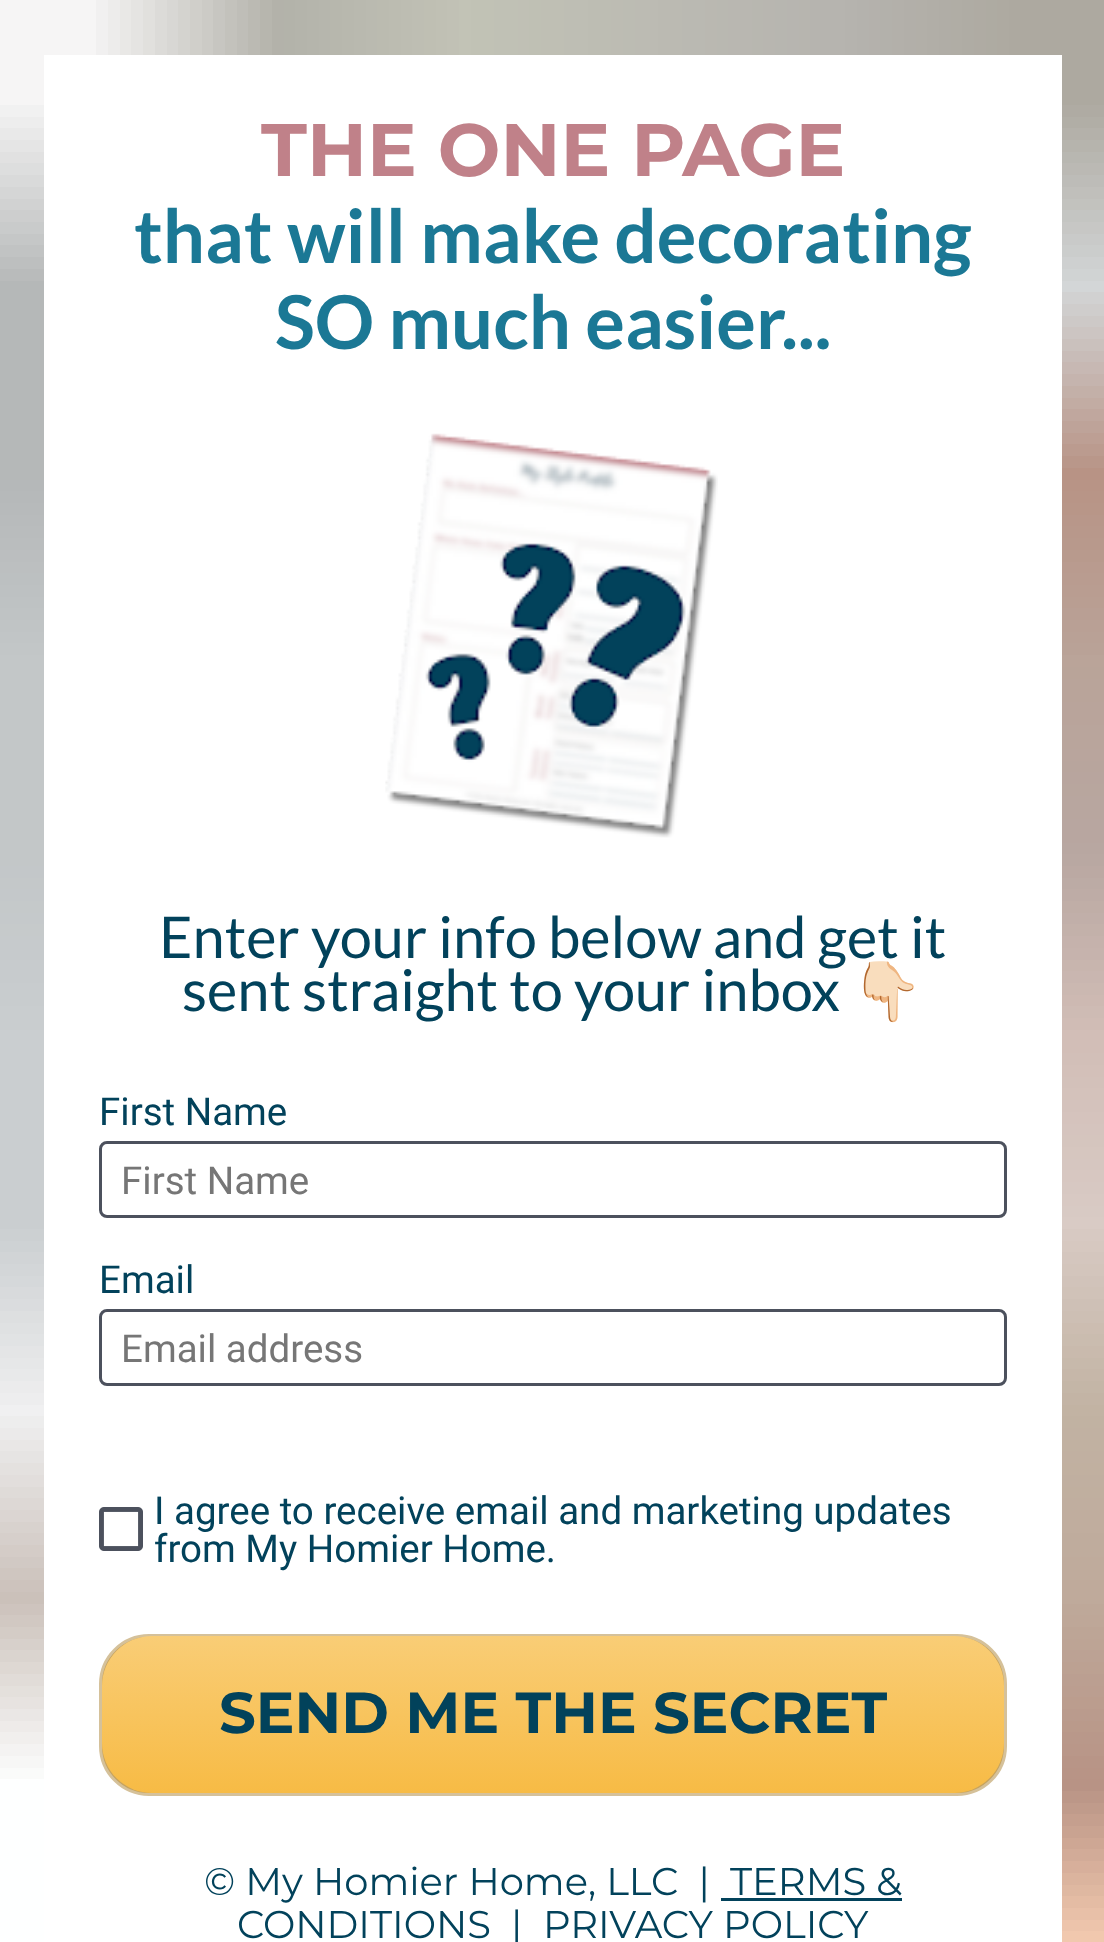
(async () => {
const canvas = document.querySelector("canvas")
canvas.width = 1104
canvas.height = 1942
const c = canvas.getContext("2d")
c.miterLimit = 4
c.fontKerning = "normal"
function T(s,x,y){c.fillText(s,x,y)}
function R(x,y,w,h){c.fillRect(x,y,w,h)}
function Q(x,y,w,h,r){c.beginPath();c.roundRect(x,y,w,h,r);c.fill()}
async function I(src,x,y,w,h){const img=new Image();img.src=src;await img.decode();c.drawImage(img,x,y,w,h)}
let gradient
c.fillStyle="#fff"
R(0,0,1104,1942)
await I("1.png",0,0,1104,1942)
R(44,55,1018,1887)
c.font="bold 74.25px Montserrat"
c.fillStyle="#c08189"
T("THE ONE PAGE",261,176)
c.font="bold 74.25px Lato"
c.fillStyle="#1b7895"
T("that will make decorating",134,263)
T("SO much easier...",275,349)
await I("2.png",385,433,333,405)
c.font="57.75px Lato"
c.fillStyle="#02425b"
T("Enter your info below and get it",159,958)
T("sent straight to your inbox",182,1011)
c.font="57.75px Noto Color Emoji"
T("👇🏻",851,1011)
c.font="38.5px Roboto"
T("First Name",99,1125)
c.beginPath()
c.roundRect(100.5,1142.5,905,74,6.5)
c.strokeStyle="#4c515d"
c.lineWidth=3
c.stroke()
c.fillStyle="#767676"
T("First Name",121,1194)
c.fillStyle="#02425b"
T("Email",99,1293)
c.beginPath()
c.roundRect(100.5,1310.5,905,74,6.5)
c.stroke()
c.fillStyle="#767676"
T("Email address",121,1362)
await I("3.png",99,1507,44,44)
c.fillStyle="#02425b"
T("I agree to receive email and marketing updates",154,1524)
T("from My Homier Home.",154,1562)
c.fillStyle="#c6a35e"
c.beginPath()
c.roundRect(100.5,1635.5,905,159,48.5)
c.fill()
c.strokeStyle="#d5c19a"
c.stroke()
gradient = c.createLinearGradient(553,1636,553,1793)
gradient.addColorStop(0,"#f9cd76")
gradient.addColorStop(1,"#f7bb45")
c.fillStyle = gradient
Q(102,1636,902,157,50)
c.font="bold 57.75px Montserrat"
c.fillStyle="#02425b"
T("SEND ME THE SECRET",219,1733)
c.font="38.5px Montserrat"
T("© My Homier Home, LLC  |",204,1895)
T("TERMS &",730,1895)
R(721,1898,181,3)
T("CONDITIONS",237,1938)
T("|",511,1938)
T("PRIVACY POLICY",543,1938)
})()
